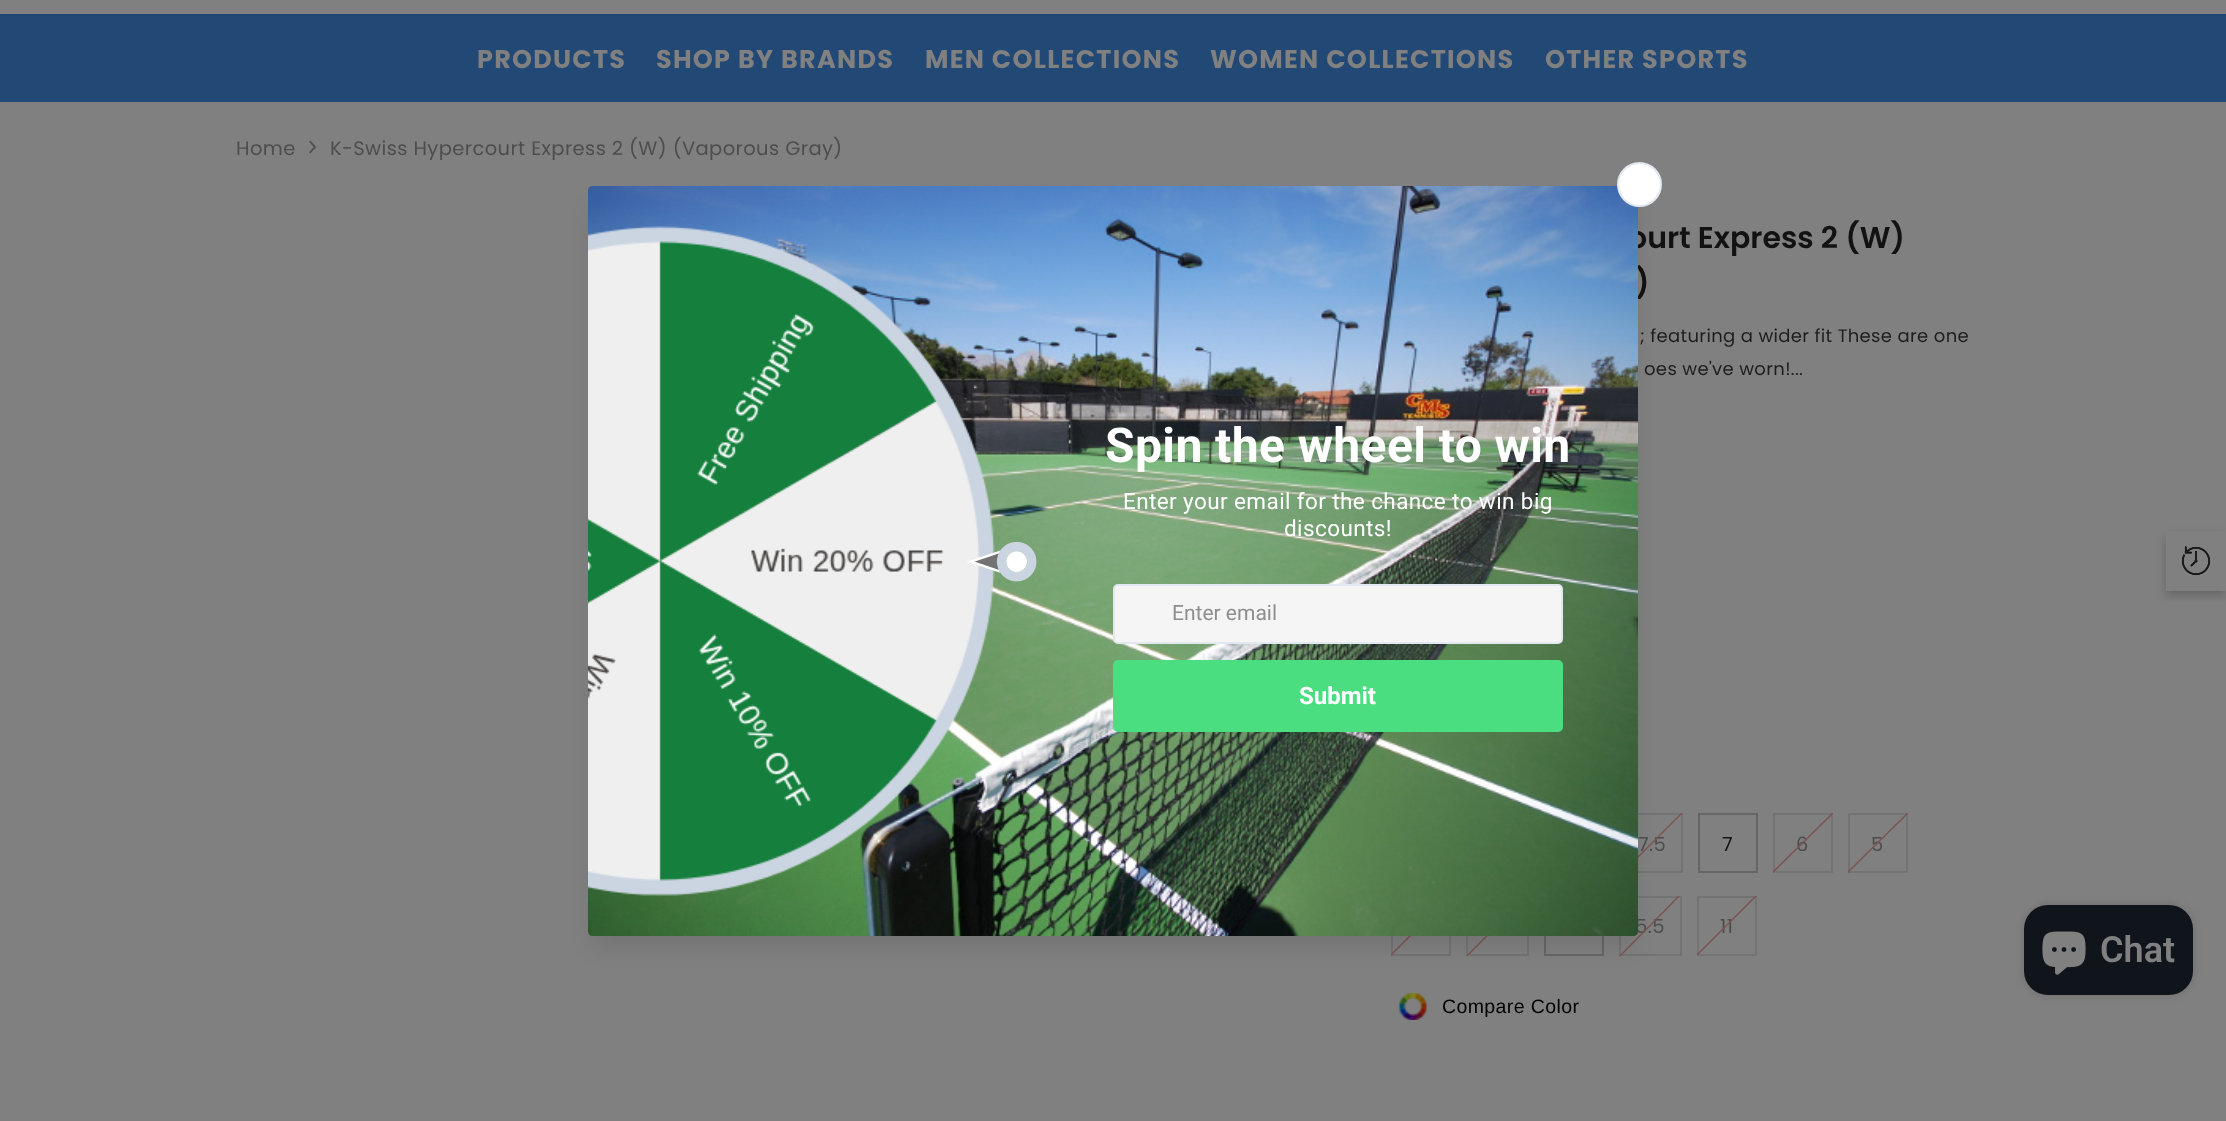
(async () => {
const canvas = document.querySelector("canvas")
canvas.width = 2226
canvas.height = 1121
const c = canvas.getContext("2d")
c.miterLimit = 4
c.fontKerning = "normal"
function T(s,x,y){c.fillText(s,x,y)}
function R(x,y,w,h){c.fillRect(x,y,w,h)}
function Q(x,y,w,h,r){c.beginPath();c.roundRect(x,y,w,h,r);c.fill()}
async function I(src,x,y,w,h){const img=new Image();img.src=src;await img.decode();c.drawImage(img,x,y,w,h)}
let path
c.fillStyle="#808080"
R(0,0,2226,1121)
c.fillStyle="#224875"
R(0,14,2226,88)
c.letterSpacing="1.25px"
c.font="bold 25.5px Poppins"
c.fillStyle="#808080"
T("PRODUCTS",477,68)
T("SHOP BY BRANDS",656,68)
T("MEN COLLECTIONS",925,68)
T("WOMEN COLLECTIONS",1210,68)
T("OTHER SPORTS",1545,68)
c.letterSpacing="0.4px"
c.font="19.5px Poppins"
c.fillStyle="#4d4d4d"
T("Home",236,155)
await I("1.png",309,140,7,14)
T("K-Swiss Hypercourt Express 2 (W) (Vaporous Gray)",330,155)
c.letterSpacing="0px"
c.font="600 30px Poppins"
c.fillStyle="#121212"
T("ourt Express 2 (W)",1628,248)
T(")",1635,293)
c.letterSpacing="0.35px"
c.font="18px Poppins"
c.fillStyle="#1e1e1e"
T("; featuring a wider fit These are one",1640,342)
T("oes we've worn!...",1644,375)
c.strokeStyle="#737373"
c.lineWidth=2
c.strokeRect(1623,814,59,58)
c.letterSpacing="0.4px"
c.font="19.5px Poppins"
c.fillStyle="#4d4d4d"
T("7.5",1638,851)
c.save()
c.beginPath()
c.rect(1622,813,61,60)
c.clip()
c.fillStyle="#7a5451"
path = new Path2D("M1619 875l65-65l1 1l-65 65z")
c.fill(path)
c.restore()
c.strokeStyle="#666"
c.strokeRect(1699,814,58,58)
c.fillStyle="#121212"
T("7",1722,851)
c.strokeStyle="#737373"
c.strokeRect(1774,814,58,58)
c.fillStyle="#4d4d4d"
T("6",1796,851)
c.save()
c.beginPath()
c.rect(1773,813,60,60)
c.clip()
c.fillStyle="#7a5451"
path = new Path2D("M1770 874l64-63l1 1l-64 63z")
c.fill(path)
c.restore()
c.strokeRect(1849,814,58,58)
T("5",1871,851)
c.save()
c.beginPath()
c.rect(1848,813,60,60)
c.clip()
c.fillStyle="#7a5451"
path = new Path2D("M1845 874l64-63l1 1l-64 63z")
c.fill(path)
c.restore()
c.strokeRect(1392,897,58,58)
c.save()
c.beginPath()
c.rect(1391,896,60,60)
c.clip()
c.fillStyle="#7a5451"
path = new Path2D("M1388 957l64-64l1 1l-64 64z")
c.fill(path)
c.restore()
c.strokeRect(1467,897,61,58)
c.save()
c.beginPath()
c.rect(1466,896,63,60)
c.clip()
c.fillStyle="#7a5451"
path = new Path2D("M1464 958l65-66l1 1l-65 66z")
c.fill(path)
c.restore()
c.strokeStyle="#666"
c.strokeRect(1545,897,58,58)
c.strokeStyle="#737373"
c.strokeRect(1620,897,61,58)
T("5.5",1635,933)
c.save()
c.beginPath()
c.rect(1619,896,63,60)
c.clip()
c.fillStyle="#7a5451"
path = new Path2D("M1617 958l65-66l1 1l-65 66z")
c.fill(path)
c.restore()
c.strokeRect(1698,897,58,58)
T("11",1720,933)
c.save()
c.beginPath()
c.rect(1697,896,60,60)
c.clip()
c.fillStyle="#7a5451"
path = new Path2D("M1694 957l64-64l1 1l-64 64z")
c.fill(path)
c.restore()
await I("2.png",1399,993,28,27)
c.font="19.5px Liberation Sans"
c.fillStyle="#000"
T("Compare Color",1442,1013)
c.fillStyle="#0000001a"
c.filter="blur(11px)"
c.beginPath()
c.rect(593,206,1041,741)
c.fill()
c.filter="none"
await I("3.png",588,186,1050,750)
c.fillStyle="#fff"
c.beginPath()
c.arc(1639.5,184.5,21.5,0,7)
c.fill()
c.strokeStyle="#e2e8f0"
c.stroke()
await I("4.png",588,226,407,670)
await I("5.png",967,542,70,40)
c.font="bold 48px Roboto"
T("Spin the wheel to win",1105,462)
c.font="22.5px Roboto"
T("Enter your email for the chance to win big",1123,509)
T("discounts!",1284,536)
c.fillStyle="#f5f5f5"
c.beginPath()
c.roundRect(1114,585,448,58,4)
c.fill()
c.stroke()
c.letterSpacing="0px"
c.font="21px Roboto"
c.fillStyle="#8e8e8e"
T("Enter email",1172,620)
c.fillStyle="#4ade80"
Q(1113,660,450,72,5)
c.font="bold 24px Roboto"
c.fillStyle="#fff"
T("Submit",1299,704)
c.save()
path = new Path2D("M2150 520h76v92h-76zm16 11h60v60h-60z")
c.clip(path,"evenodd")
c.fillStyle="#00000033"
c.filter="blur(5px)"
c.beginPath()
c.rect(2166,536,60,60)
c.fill()
c.filter="none"
c.restore()
await I("6.png",2181,546,30,30)
c.fillStyle="#00000026"
c.filter="blur(4px)"
c.beginPath()
c.roundRect(2024,905,169,90,24)
c.fill()
c.filter="none"
c.fillStyle="#10151b"
Q(2024,905,169,90,24)
await I("7.png",2042,931,44,44)
c.font="600 36px Roboto"
c.fillStyle="#808080"
T("Chat",2100,962)
})()
